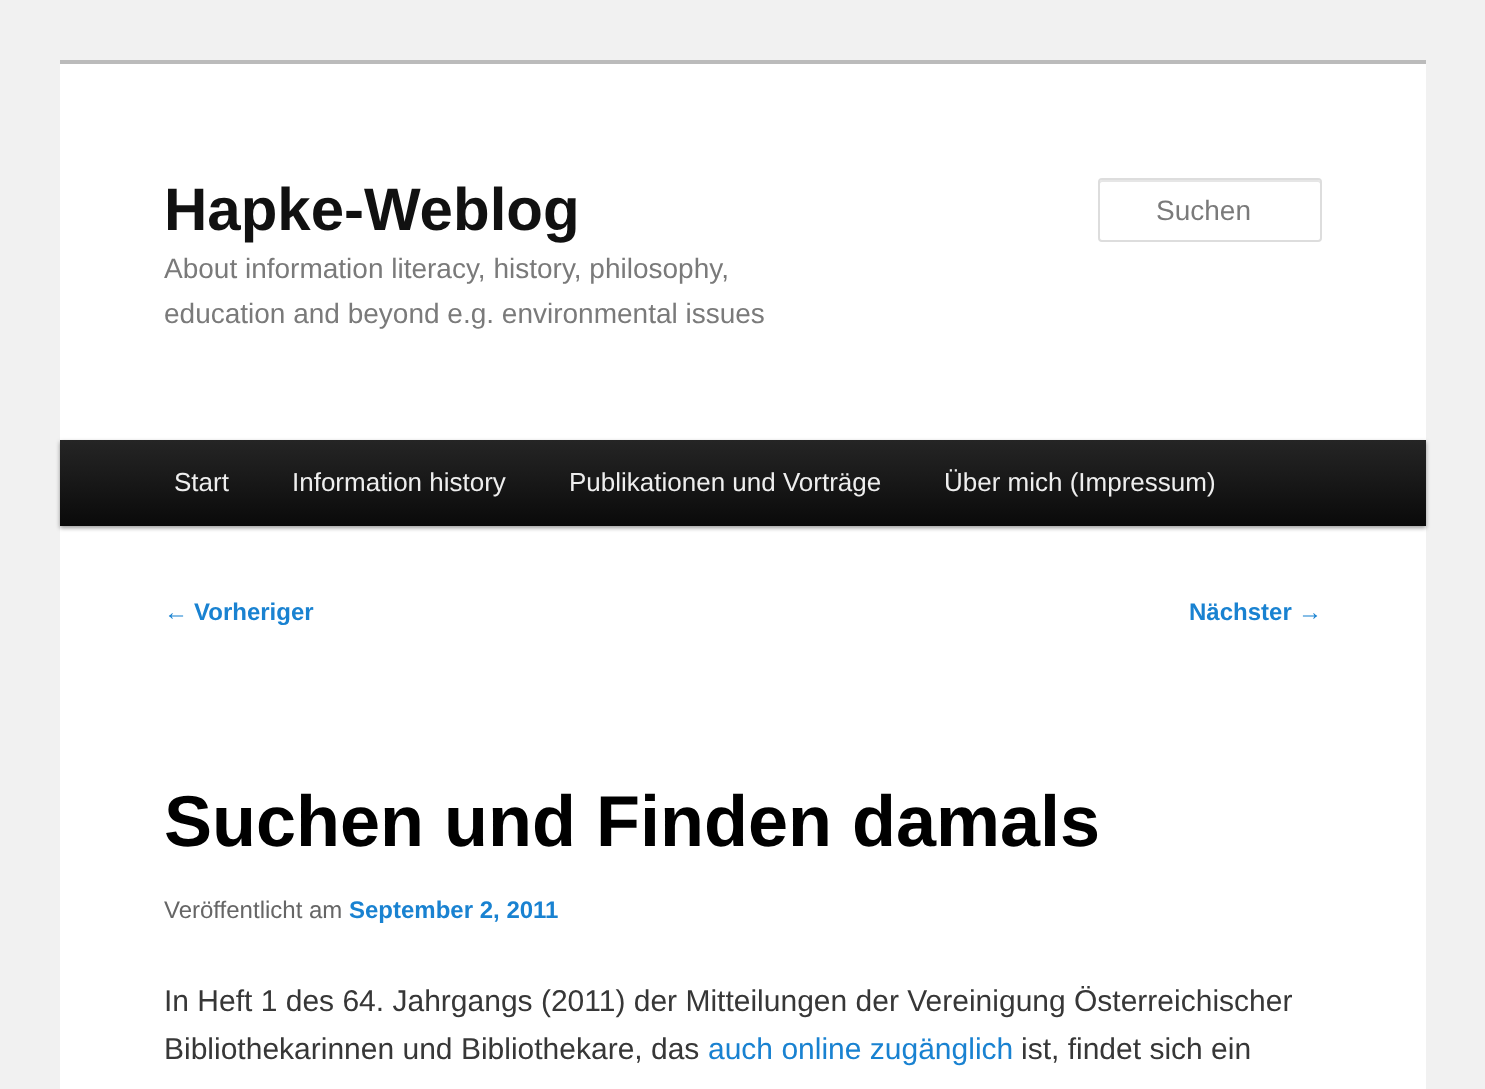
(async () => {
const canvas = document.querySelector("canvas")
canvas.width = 1485
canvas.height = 1089
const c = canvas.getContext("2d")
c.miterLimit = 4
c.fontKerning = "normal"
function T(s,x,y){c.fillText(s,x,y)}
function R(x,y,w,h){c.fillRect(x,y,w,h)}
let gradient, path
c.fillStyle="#f1f1f1"
R(0,0,1485,1089)
c.fillStyle="#fff"
R(60,64,1366,1025)
c.fillStyle="#bbb"
R(60,60,1366,4)
c.font="bold 60px Liberation Sans"
c.fillStyle="#111"
T("Hapke-Weblog",164,230)
c.font="28px Liberation Sans"
c.fillStyle="#7a7a7a"
T("About information literacy, history, philosophy,",164,278)
T("education and beyond e.g. environmental issues",164,323)
c.fillStyle="#e6e6e6"
path = new Path2D("M1102 182h216c1 0 2 1 2 2v-2c0-1-1-2-2-2h-216c-1 0-2 1-2 2v2c0-1 1-2 2-2z")
c.fill(path)
c.beginPath()
c.roundRect(1099,179,222,62,3)
c.strokeStyle="#ddd"
c.lineWidth=2
c.stroke()
c.fillStyle="#7a7a7a"
T("Suchen",1156,220)
c.fillStyle="#00000066"
c.filter="blur(2px)"
c.beginPath()
c.rect(60,442,1366,86)
c.fill()
c.filter="none"
gradient = c.createLinearGradient(743,440,743,526)
gradient.addColorStop(0,"#252525")
gradient.addColorStop(1,"#0a0a0a")
c.fillStyle = gradient
R(60,440,1366,86)
c.font="26px Liberation Sans"
c.fillStyle="#eee"
T("Start",174,491)
T("Information history",292,491)
T("Publikationen und Vorträge",569,491)
T("Über mich (Impressum)",944,491)
c.font="24px Liberation Sans"
c.fillStyle="#1982d1"
T("←",164,620)
c.font="bold 24px Liberation Sans"
T("Vorheriger",194,620)
T("Nächster",1189,620)
c.font="24px Liberation Sans"
T("→",1298,620)
c.font="bold 72px Liberation Sans"
c.fillStyle="#000"
T("Suchen und Finden damals",164,846)
c.font="24px Liberation Sans"
c.fillStyle="#666"
T("Veröffentlicht am",164,918)
c.font="bold 24px Liberation Sans"
c.fillStyle="#1982d1"
T("September 2, 2011",349,918)
c.font="30px Liberation Sans"
c.fillStyle="#373737"
T("In Heft 1 des 64. Jahrgangs (2011) der Mitteilungen der Vereinigung Österreichischer",164,1011)
T("Bibliothekarinnen und Bibliothekare, das",164,1059)
c.fillStyle="#1982d1"
T("auch online zugänglich",708,1059)
c.fillStyle="#373737"
T("ist, findet sich ein",1021,1059)
})()
